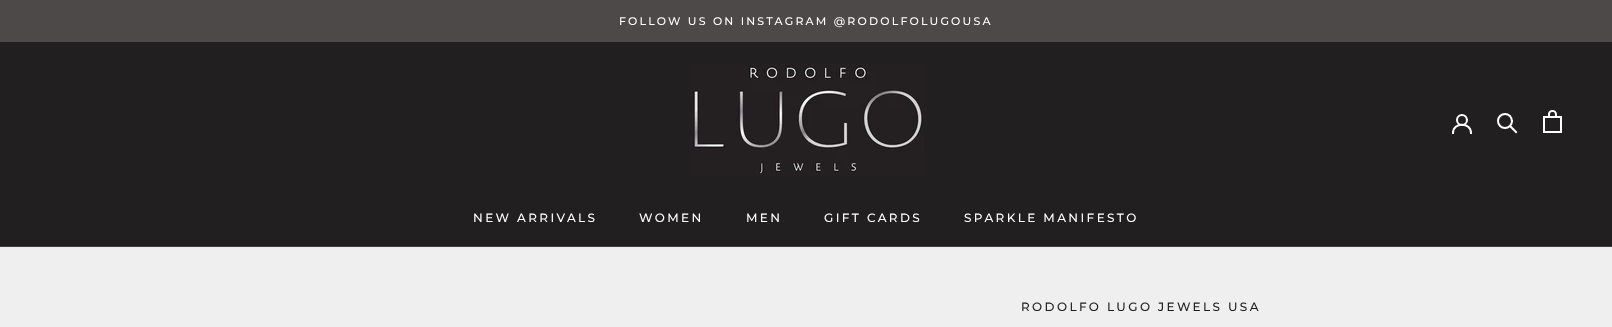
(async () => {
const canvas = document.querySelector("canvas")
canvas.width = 1612
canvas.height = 327
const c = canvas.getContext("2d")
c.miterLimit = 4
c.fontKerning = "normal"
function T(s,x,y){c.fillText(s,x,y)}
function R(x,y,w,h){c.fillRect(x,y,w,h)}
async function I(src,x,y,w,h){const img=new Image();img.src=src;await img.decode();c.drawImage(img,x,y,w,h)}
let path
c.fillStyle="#efefef"
R(0,0,1612,327)
c.fillStyle="#4d4949"
R(0,0,1612,42)
c.letterSpacing="2.2px"
c.font="500 11px Montserrat"
c.fillStyle="#fff"
T("FOLLOW US ON INSTAGRAM @RODOLFOLUGOUSA",619,25)
c.fillStyle="#211f1f"
R(0,42,1612,204)
c.fillStyle="#424141"
R(0,246,1612,1)
await I("1.png",692,64,232,112)
path = new Path2D("M1453 133c0-11 18-11 18 0")
c.strokeStyle="#fff"
c.lineWidth=2
c.lineCap="square"
c.stroke(path)
c.beginPath()
c.arc(1462,120,5,0,7)
c.stroke()
path = new Path2D("M1516 132l-5.5-5.5")
c.stroke(path)
c.beginPath()
c.arc(1505,121,7,0,7)
c.stroke()
await I("2.png",1543,110,19,23)
c.letterSpacing="2.4px"
c.font="500 12px Montserrat"
c.fillStyle="#fff"
T("NEW ARRIVALS",473,222)
T("WOMEN",639,222)
T("MEN",746,222)
T("GIFT CARDS",824,222)
T("SPARKLE MANIFESTO",964,222)
c.fillStyle="#1c1b1b"
T("RODOLFO LUGO JEWELS USA",1021,311)
})()
